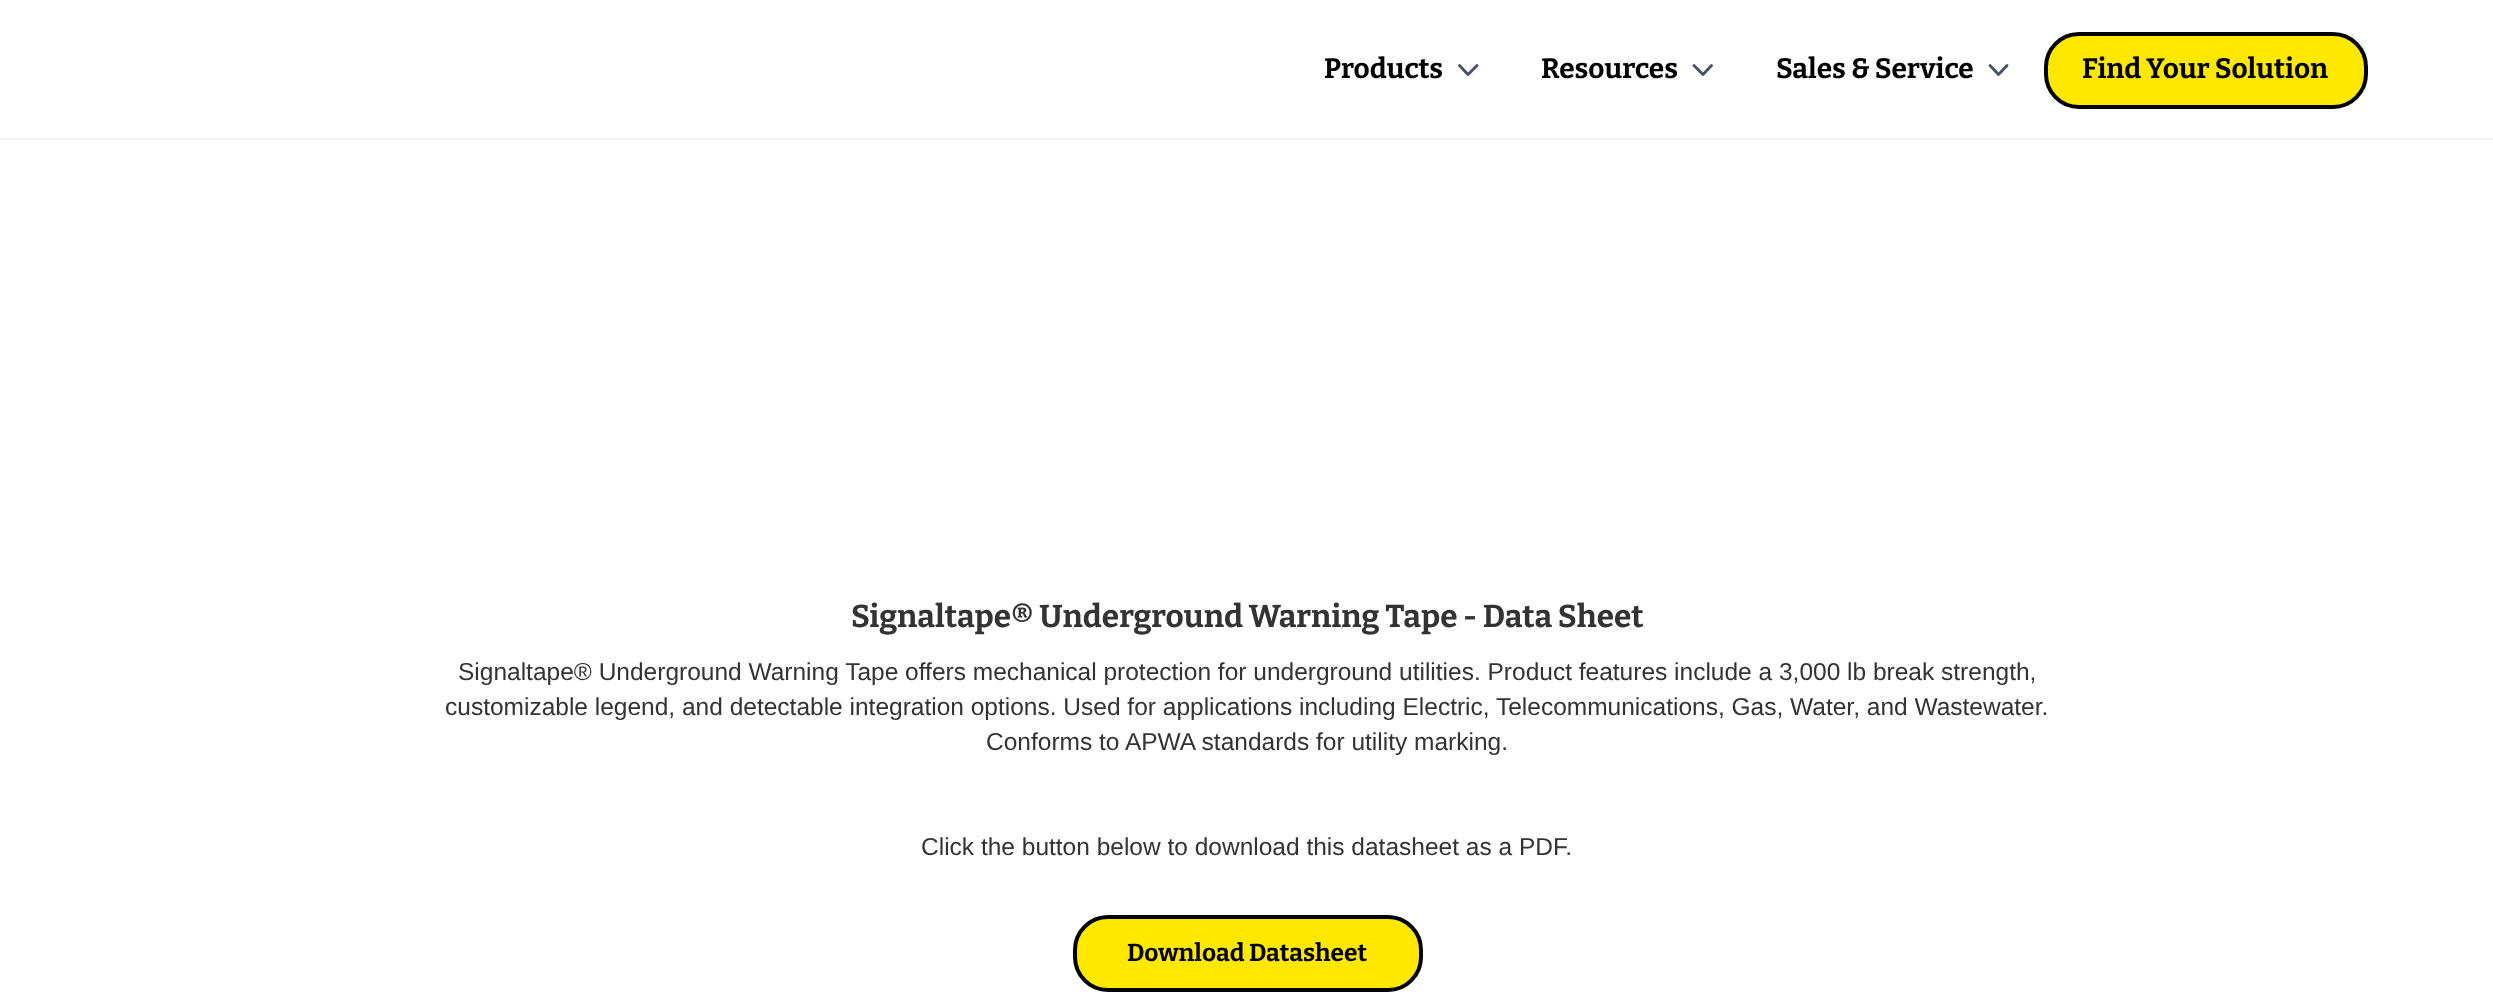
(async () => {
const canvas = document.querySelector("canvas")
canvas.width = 2493
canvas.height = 992
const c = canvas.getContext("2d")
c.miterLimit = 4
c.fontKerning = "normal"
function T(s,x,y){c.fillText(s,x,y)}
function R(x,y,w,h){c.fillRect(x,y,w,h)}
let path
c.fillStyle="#fff"
R(0,0,2493,992)
c.fillStyle="#f2f4f7"
R(0,138,2493,2)
c.font="bold 28px Bitter"
c.fillStyle="#000"
T("Products",1324,78)
path = new Path2D("M1459.5 65.5l8.5 9l9-9")
c.strokeStyle="#475467"
c.lineWidth=2.9
c.lineCap="round"
c.lineJoin="round"
c.stroke(path)
T("Resources",1541,78)
path = new Path2D("M1694 65.5l9 9l8.5-9")
c.stroke(path)
T("Sales & Service",1776,78)
path = new Path2D("M1990 65.5l8.5 9l8.5-9")
c.stroke(path)
c.fillStyle="#ffe800"
c.beginPath()
c.roundRect(2046,34,320,73,33)
c.fill()
c.strokeStyle="#000"
c.lineWidth=4
c.lineJoin="miter"
c.stroke()
c.fillStyle="#000"
T("Find Your Solution",2082,78)
c.font="bold 31.5px Bitter"
c.fillStyle="#333"
T("Signaltape® Underground Warning Tape - Data Sheet",851,627)
c.font="24.5px Liberation Sans"
T("Signaltape® Underground Warning Tape offers mechanical protection for underground utilities. Product features include a 3,000 lb break strength,",458,680)
T("customizable legend, and detectable integration options. Used for applications including Electric, Telecommunications, Gas, Water, and Wastewater.",445,715)
T("Conforms to APWA standards for utility marking.",986,750)
T("Click the button below to download this datasheet as a PDF.",921,855)
c.fillStyle="#ffe800"
c.beginPath()
c.roundRect(1075,917,346,73,33)
c.fill()
c.stroke()
c.font="bold 24.5px Bitter"
c.fillStyle="#000"
T("Download Datasheet",1127,961)
})()
